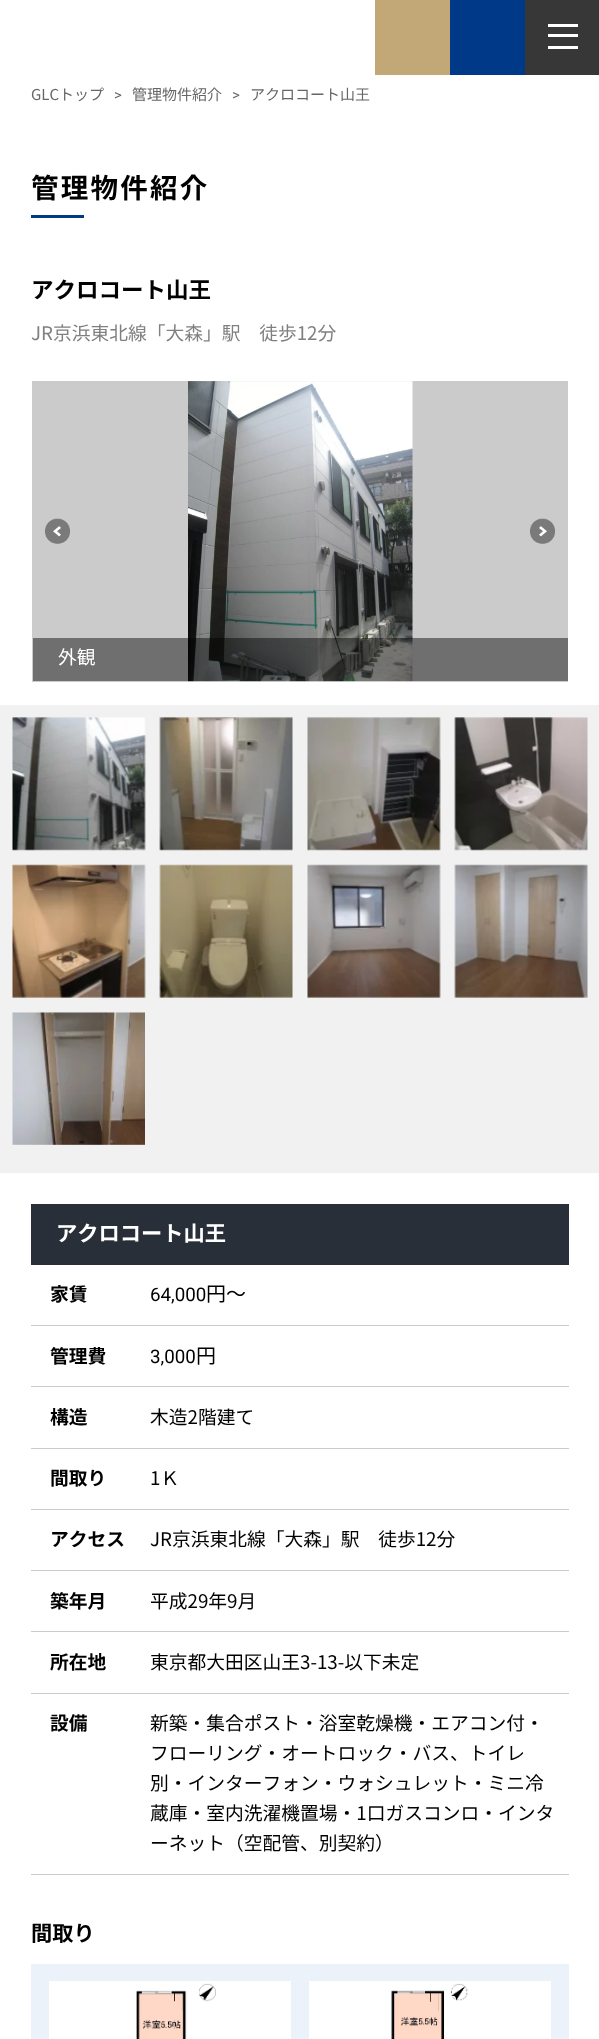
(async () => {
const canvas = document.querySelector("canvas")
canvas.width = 599
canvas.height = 2039
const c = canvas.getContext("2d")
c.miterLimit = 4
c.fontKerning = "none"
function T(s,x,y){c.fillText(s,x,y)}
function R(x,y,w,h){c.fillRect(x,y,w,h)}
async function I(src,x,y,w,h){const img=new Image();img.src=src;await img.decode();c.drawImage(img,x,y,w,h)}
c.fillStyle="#fff"
R(0,0,599,2039)
c.fillStyle="#c1a876"
R(375,0,75,75)
c.fillStyle="#003988"
R(450,0,75,75)
c.fillStyle="#373737"
R(525,0,74,75)
c.fillStyle="#fff"
R(548,24,30,3)
R(548,34,30,3)
R(548,46,30,3)
c.font="15px Noto Sans JP"
c.fillStyle="#666"
T("GLCトップ",31,100)
c.font="15px Roboto"
T(">",114,100)
c.font="15px Noto Sans JP"
T("管理物件紹介",132,100)
c.font="15px Roboto"
T(">",232,100)
c.font="15px Noto Sans JP"
T("アクロコート山王",250,100)
c.letterSpacing="2.25px"
c.font="bold 27.5px Noto Sans JP"
c.fillStyle="#000"
T("管理物件紹介",31,198)
c.fillStyle="#003988"
R(31,215,53,3)
c.letterSpacing="0px"
c.font="bold 22.5px Noto Sans JP"
c.fillStyle="#000"
T("アクロコート山王",31,298)
c.font="18.75px Noto Sans JP"
c.fillStyle="#808080"
T("JR京浜東北線「大森」駅　徒歩12分",31,340)
c.fillStyle="#cbcbcb"
R(32,381,536,301)
await I("1.png",45,518,25,26)
await I("2.png",530,518,25,26)
await I("3.png",188,381,225,301)
c.fillStyle="#00000073"
R(33,638,535,43)
c.fillStyle="#fff"
T("外観",58,664)
c.fillStyle="#f1f1f1"
R(0,705,599,468)
await I("4.png",12,717,134,134)
await I("5.png",159,717,134,134)
await I("6.png",307,717,134,134)
await I("7.png",454,717,134,134)
await I("8.png",12,864,134,134)
await I("9.png",159,864,134,134)
await I("10.png",307,864,134,134)
await I("11.png",454,864,134,134)
await I("12.png",12,1012,133,133)
c.fillStyle="#282f39"
R(31,1204,538,61)
c.font="bold 21.25px Noto Sans JP"
c.fillStyle="#fff"
T("アクロコート山王",56,1241)
c.fillStyle="#cbcbcb"
R(31,1325,538,1)
c.font="bold 18.75px Noto Sans JP"
c.fillStyle="#000"
T("家賃",50,1301)
c.font="18.75px Roboto"
T("64,000",150,1301)
c.font="20px Noto Sans JP"
T("円～",206,1301)
c.fillStyle="#cbcbcb"
R(31,1386,538,1)
c.font="bold 18.75px Noto Sans JP"
c.fillStyle="#000"
T("管理費",50,1363)
c.font="18.75px Roboto"
T("3,000",150,1363)
c.font="20px Noto Sans JP"
T("円",196,1363)
c.fillStyle="#cbcbcb"
R(31,1448,538,1)
c.font="bold 18.75px Noto Sans JP"
c.fillStyle="#000"
T("構造",50,1424)
c.font="18.75px Noto Sans JP"
T("木造2階建て",150,1424)
c.fillStyle="#cbcbcb"
R(31,1509,538,1)
c.font="bold 18.75px Noto Sans JP"
c.fillStyle="#000"
T("間取り",50,1485)
c.font="18.75px Noto Sans JP"
T("1Ｋ",150,1485)
c.fillStyle="#cbcbcb"
R(31,1570,538,1)
c.font="bold 18.75px Noto Sans JP"
c.fillStyle="#000"
T("アクセス",50,1546)
c.font="18.75px Noto Sans JP"
T("JR京浜東北線「大森」駅　徒歩12分",150,1546)
c.fillStyle="#cbcbcb"
R(31,1631,538,1)
c.font="bold 18.75px Noto Sans JP"
c.fillStyle="#000"
T("築年月",50,1608)
c.font="18.75px Noto Sans JP"
T("平成29年9月",150,1608)
c.fillStyle="#cbcbcb"
R(31,1693,538,1)
c.font="bold 18.75px Noto Sans JP"
c.fillStyle="#000"
T("所在地",50,1669)
c.font="18.75px Noto Sans JP"
T("東京都大田区山王3-13-以下未定",150,1669)
c.fillStyle="#cbcbcb"
R(31,1874,538,1)
c.font="bold 18.75px Noto Sans JP"
c.fillStyle="#000"
T("設備",50,1730)
c.font="18.75px Noto Sans JP"
T("新築・集合ポスト・浴室乾燥機・エアコン付・",150,1730)
T("フローリング・オートロック・バス、トイレ",150,1760)
T("別・インターフォン・ウォシュレット・ミニ冷",150,1790)
T("蔵庫・室内洗濯機置場・1口ガスコンロ・インタ",150,1820)
T("ーネット（空配管、別契約）",150,1850)
c.font="bold 21.25px Noto Sans JP"
T("間取り",31,1941)
c.fillStyle="#ecf2f9"
R(31,1964,538,75)
c.fillStyle="#fff"
R(49,1981,242,58)
await I("13.png",136,1983,80,56)
R(309,1981,242,58)
await I("14.png",391,1983,77,56)
})()
